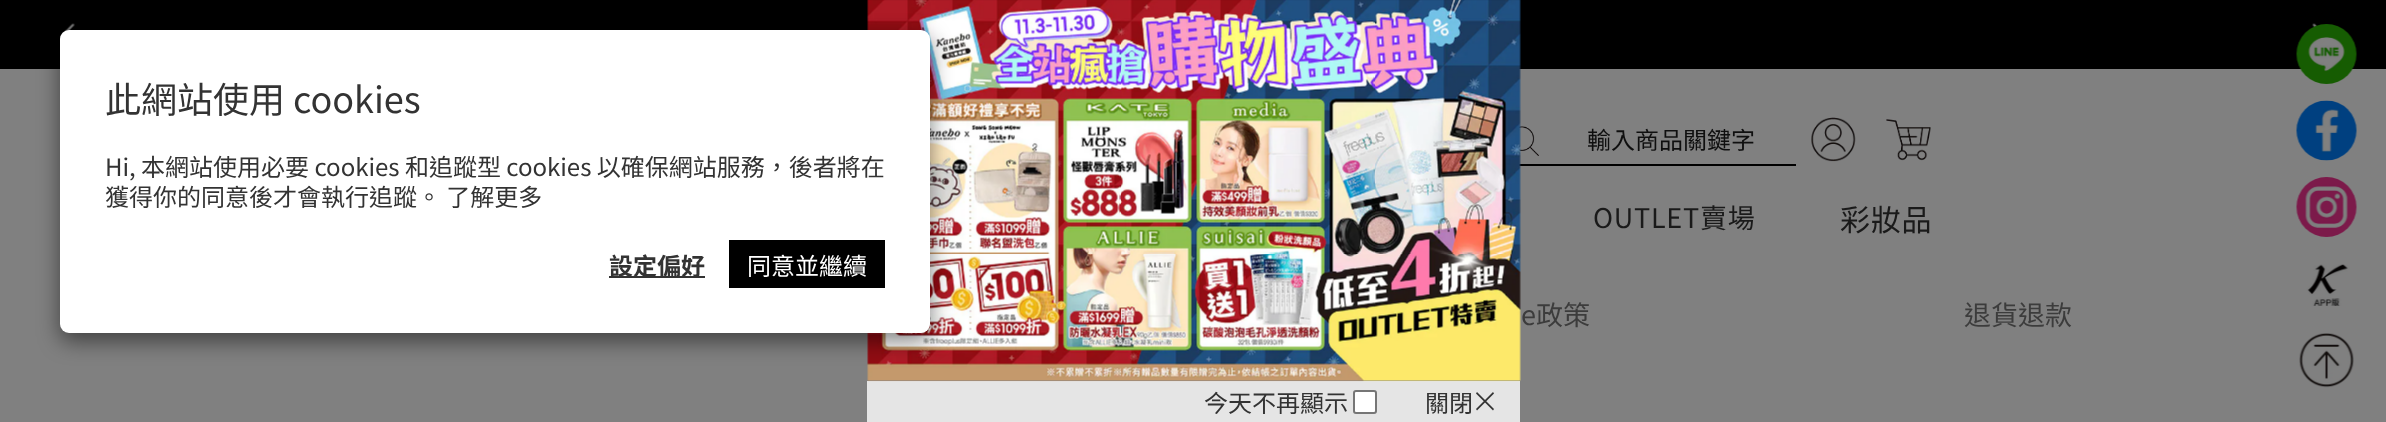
(async () => {
const canvas = document.querySelector("canvas")
canvas.width = 2386
canvas.height = 422
const c = canvas.getContext("2d")
c.miterLimit = 4
c.fontKerning = "normal"
function T(s,x,y){c.fillText(s,x,y)}
function R(x,y,w,h){c.fillRect(x,y,w,h)}
function Q(x,y,w,h,r){c.beginPath();c.roundRect(x,y,w,h,r);c.fill()}
async function I(src,x,y,w,h){const img=new Image();img.src=src;await img.decode();c.drawImage(img,x,y,w,h)}
let path
c.fillStyle="#808080"
R(0,0,2386,422)
c.fillStyle="#000"
R(0,0,2386,69)
await I("1.png",60,23,15,13)
R(1519,164,277,2)
await I("3.png",1519,126,20,30)
c.fillStyle="#e5e5e5"
R(867,381,653,41)
await I("11.png",867,0,654,382)
c.fillStyle="#00000080"
c.filter="blur(11px)"
c.beginPath()
c.roundRect(60,38,870,303,9)
c.fill()
c.filter="none"
c.fillStyle="#fff"
Q(60,30,870,303,9)
c.font="36px Noto Sans TC"
c.fillStyle="#333"
T("此網站使用 cookies",105,113)
c.font="24px Noto Sans TC"
T("Hi, 本網站使用必要 cookies 和追蹤型 cookies 以確保網站服務，後者將在",105,176)
T("獲得你的同意後才會執行追蹤。 了解更多",105,206)
R(609,276,96,2)
c.font="bold 24px Noto Sans TC"
T("設定偏好",609,275)
c.fillStyle="#000"
R(729,240,156,48)
c.font="24px Noto Sans TC"
c.fillStyle="#fff"
T("同意並繼續",747,275)
await I("2.png",2312,23,6,5)
c.fillStyle="#0f0f0f"
T("輸入商品關鍵字",1587,149)
await I("4.png",1811,117,45,45)
await I("5.png",1886,119,45,42)
c.letterSpacing="0.75px"
c.font="27px Noto Sans TC"
c.fillStyle="#1a1a1a"
T("OUTLET賣場",1593,228)
c.font="30px Noto Sans TC"
T("彩妝品",1840,231)
await I("6.png",2296,24,61,60)
await I("7.png",2296,100,61,61)
await I("8.png",2296,177,61,60)
await I("9.png",2299,264,55,42)
await I("10.png",2299,333,55,55)
c.letterSpacing="0px"
c.font="27px Noto Sans TC"
c.fillStyle="#3c3c3c"
T("e政策",1521,325)
T("退貨退款",1964,325)
c.font="24px Noto Sans TC"
c.fillStyle="#333"
T("今天不再顯示",1204,412)
c.fillStyle="#fff"
c.beginPath()
c.roundRect(1354,391,22,22,2)
c.fill()
c.strokeStyle="#767676"
c.lineWidth=2
c.stroke()
c.fillStyle="#333"
T("關閉",1425,412)
path = new Path2D("M1477 392l17 17l-1 1.5l-17-17z")
c.fill(path)
path = new Path2D("M1494 393.5l-17 17l-1-1.5l17-17z")
c.fill(path)
})()
